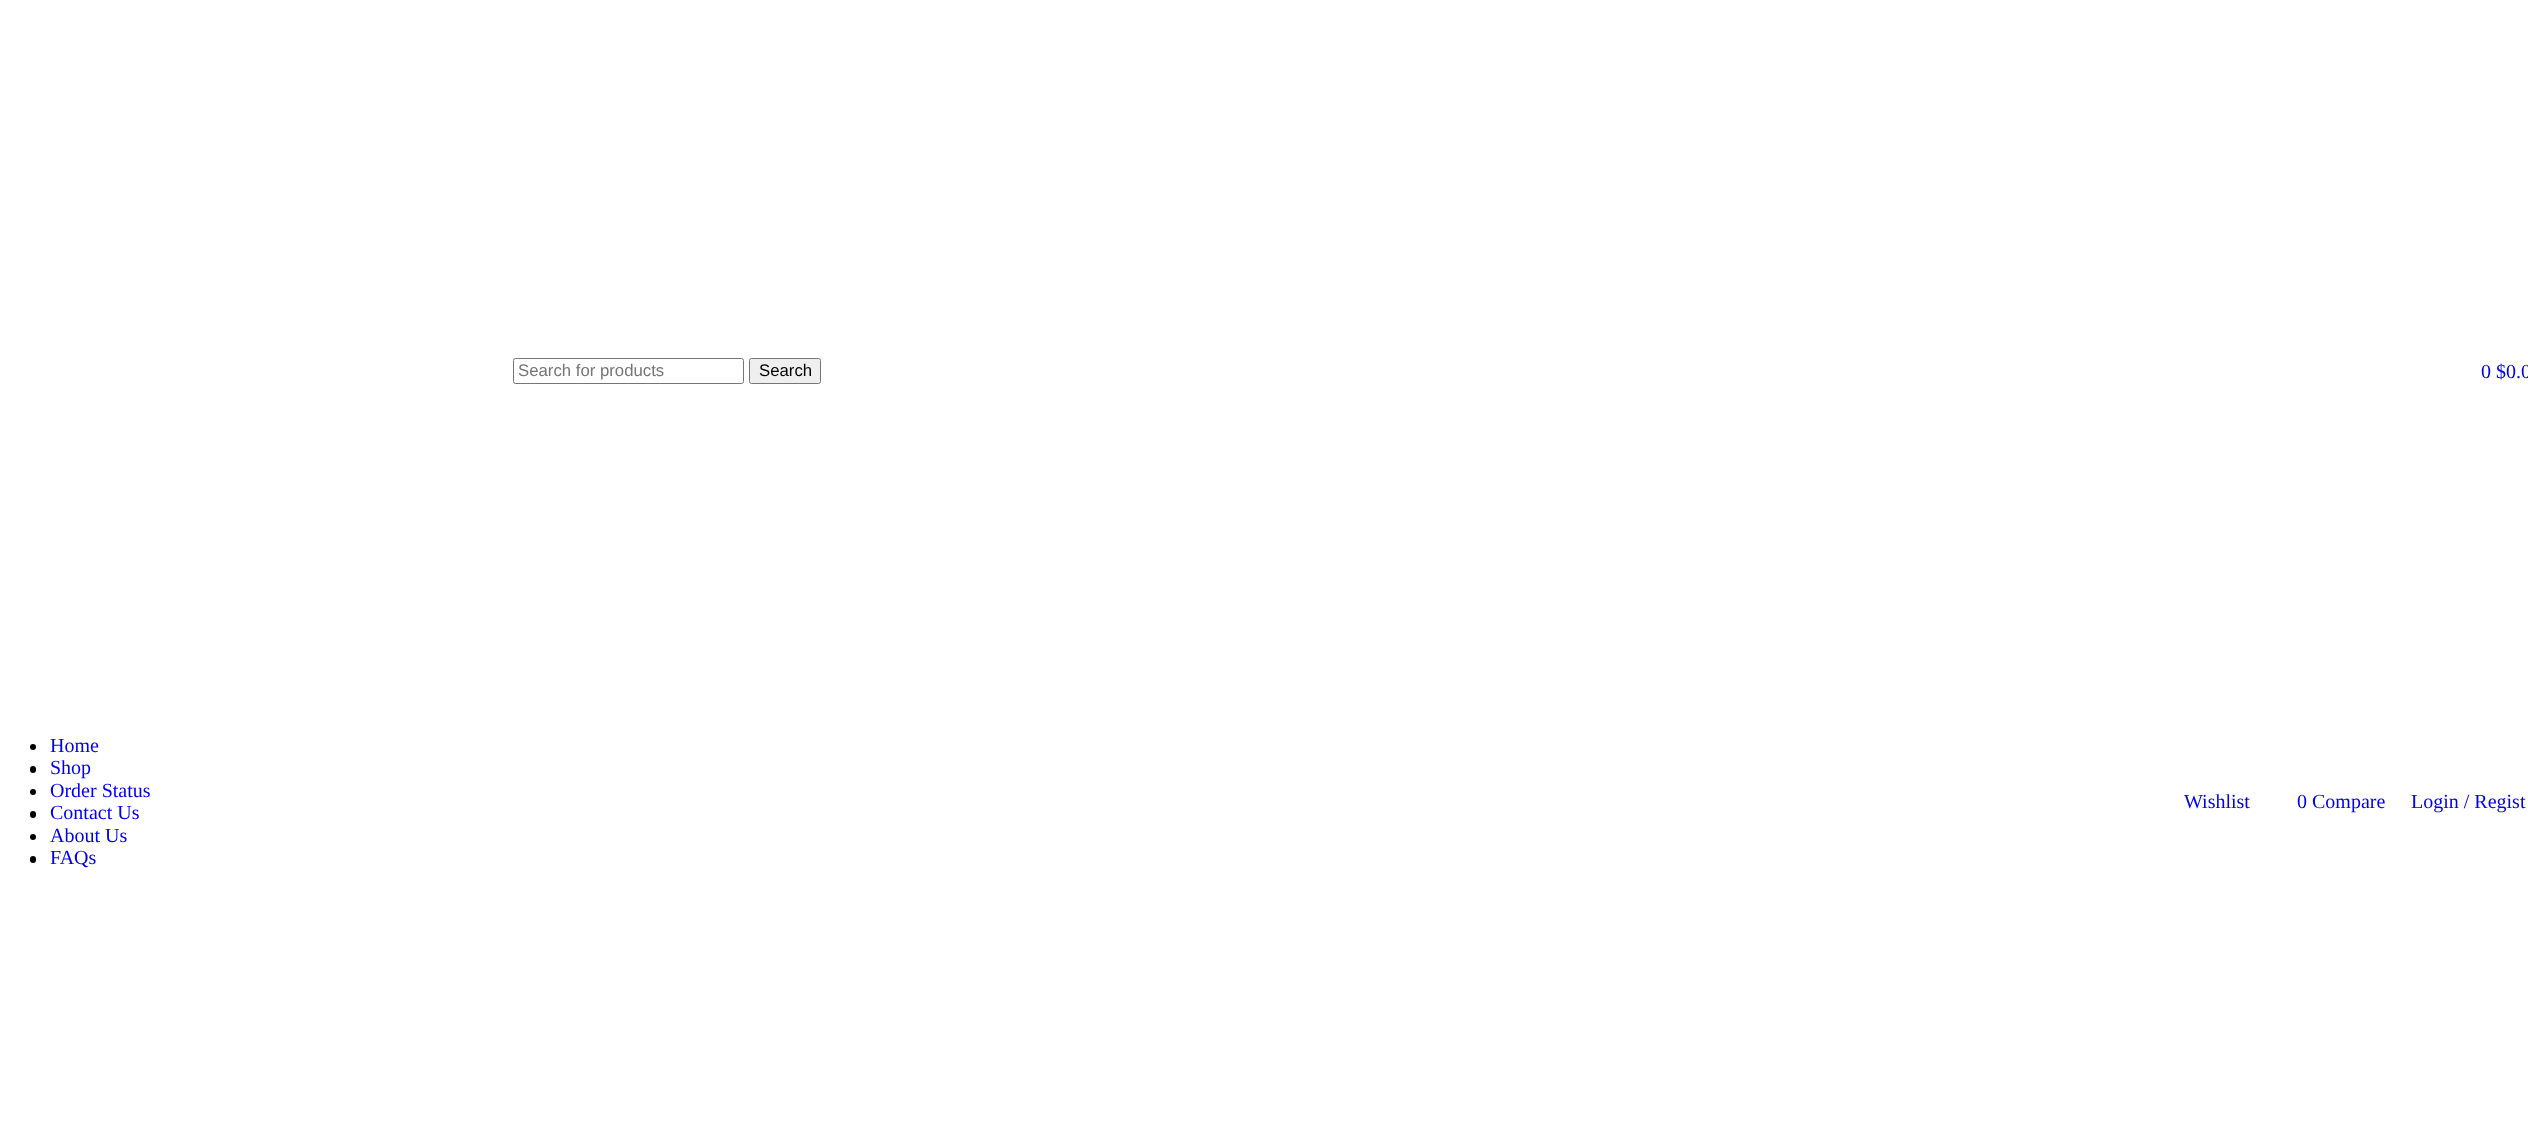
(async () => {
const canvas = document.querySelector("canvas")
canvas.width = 2528
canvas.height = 1122
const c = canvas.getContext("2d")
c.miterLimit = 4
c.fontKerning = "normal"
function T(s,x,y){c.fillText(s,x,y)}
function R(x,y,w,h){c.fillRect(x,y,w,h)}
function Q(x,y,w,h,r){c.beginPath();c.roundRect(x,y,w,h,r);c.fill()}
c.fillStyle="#fff"
R(0,0,2528,1122)
c.beginPath()
c.roundRect(513.5,358.5,230,25,2)
c.strokeStyle="#767676"
c.stroke()
c.font="16.75px Liberation Sans"
c.fillStyle="#757575"
T("Search for products",518,376)
c.fillStyle="#efefef"
c.beginPath()
c.roundRect(749.5,358.5,71,25,2)
c.fill()
c.stroke()
c.fillStyle="#000"
T("Search",759,376)
c.font="20px Liberation Serif"
c.fillStyle="#00e"
T("0 $0.0",2481,378)
c.fillStyle="#000"
c.beginPath()
c.arc(33,747,3,0,7)
c.fill()
c.fillStyle="#00e"
T("Home",50,752)
c.fillStyle="#000"
Q(30,766,6,7,3)
c.fillStyle="#00e"
T("Shop",50,774)
c.fillStyle="#000"
c.beginPath()
c.arc(33,792,3,0,7)
c.fill()
c.fillStyle="#00e"
T("Order Status",50,797)
c.fillStyle="#000"
Q(30,811,6,7,3)
c.fillStyle="#00e"
T("Contact Us",50,819)
c.fillStyle="#000"
c.beginPath()
c.arc(33,837,3,0,7)
c.fill()
c.fillStyle="#00e"
T("About Us",50,842)
c.fillStyle="#000"
Q(30,856,6,7,3)
c.fillStyle="#00e"
T("FAQs",50,864)
T("Wishlist",2184,808)
T("0 Compare",2297,808)
T("Login / Regist",2411,808)
})()
